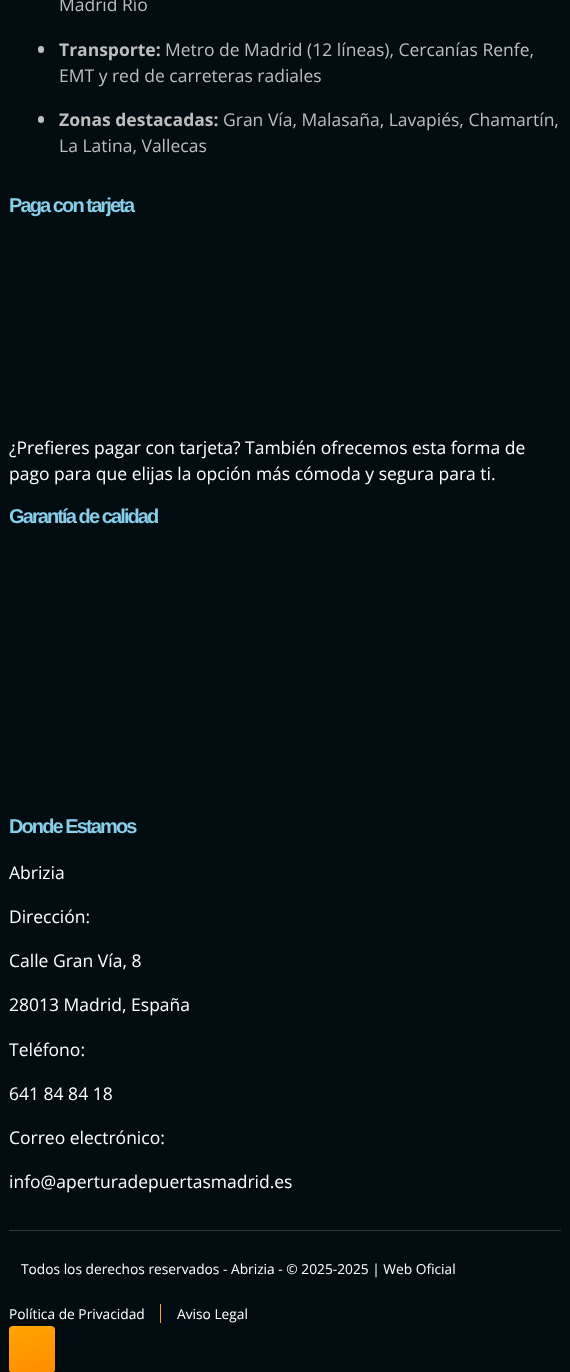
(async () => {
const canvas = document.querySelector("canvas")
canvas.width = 570
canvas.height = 1372
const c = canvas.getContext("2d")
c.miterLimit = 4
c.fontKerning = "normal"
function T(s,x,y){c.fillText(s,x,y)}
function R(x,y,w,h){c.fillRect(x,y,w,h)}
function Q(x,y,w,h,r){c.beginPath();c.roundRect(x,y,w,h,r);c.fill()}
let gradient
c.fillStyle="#030c10"
R(0,0,570,1372)
c.font="17.5px Open Sans"
c.fillStyle="#bebebe"
T("Madrid Río",59,11)
Q(38,46,6,7,3)
c.font="bold 17.5px Open Sans"
T("Transporte:",59,56)
c.font="17.5px Open Sans"
T("Metro de Madrid (12 líneas), Cercanías Renfe,",165,56)
T("EMT y red de carreteras radiales",59,82)
Q(38,116,6,7,3)
c.font="bold 17.5px Open Sans"
T("Zonas destacadas:",59,126)
c.font="17.5px Open Sans"
T("Gran Vía, Malasaña, Lavapiés, Chamartín,",223,126)
T("La Latina, Vallecas",59,152)
c.letterSpacing="-1.9px"
c.font="bold 20px Liberation Sans"
c.fillStyle="#87ceeb"
T("Paga con tarjeta",9,212)
c.letterSpacing="0px"
c.font="17.5px Open Sans"
c.fillStyle="#fff"
T("¿Prefieres pagar con tarjeta? También ofrecemos esta forma de",9,454)
T("pago para que elijas la opción más cómoda y segura para ti.",9,480)
c.letterSpacing="-1.9px"
c.font="bold 20px Liberation Sans"
c.fillStyle="#87ceeb"
T("Garantía de calidad",9,523)
T("Donde Estamos",9,833)
c.letterSpacing="0px"
c.font="17.5px Open Sans"
c.fillStyle="#fff"
T("Abrizia",9,879)
T("Dirección:",9,923)
T("Calle Gran Vía, 8",9,967)
T("28013 Madrid, España",9,1011)
T("Teléfono:",9,1056)
T("641 84 84 18",9,1100)
T("Correo electrónico:",9,1144)
T("info@aperturadepuertasmadrid.es",9,1188)
c.fillStyle="#333a3d"
R(9,1230,552,1)
c.font="13.75px Open Sans"
c.fillStyle="#fff"
T("Todos los derechos reservados - Abrizia - © 2025-2025 | Web Oficial",21,1274)
T("Política de Privacidad",9,1319)
c.fillStyle="#ffa500"
R(160,1304,1,19)
c.fillStyle="#fff"
T("Aviso Legal",177,1319)
gradient = c.createLinearGradient(22,1322,42,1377)
gradient.addColorStop(0,"#ffa500")
gradient.addColorStop(1,"#ff8c00")
c.fillStyle = gradient
Q(9,1326,46,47,4)
})()
